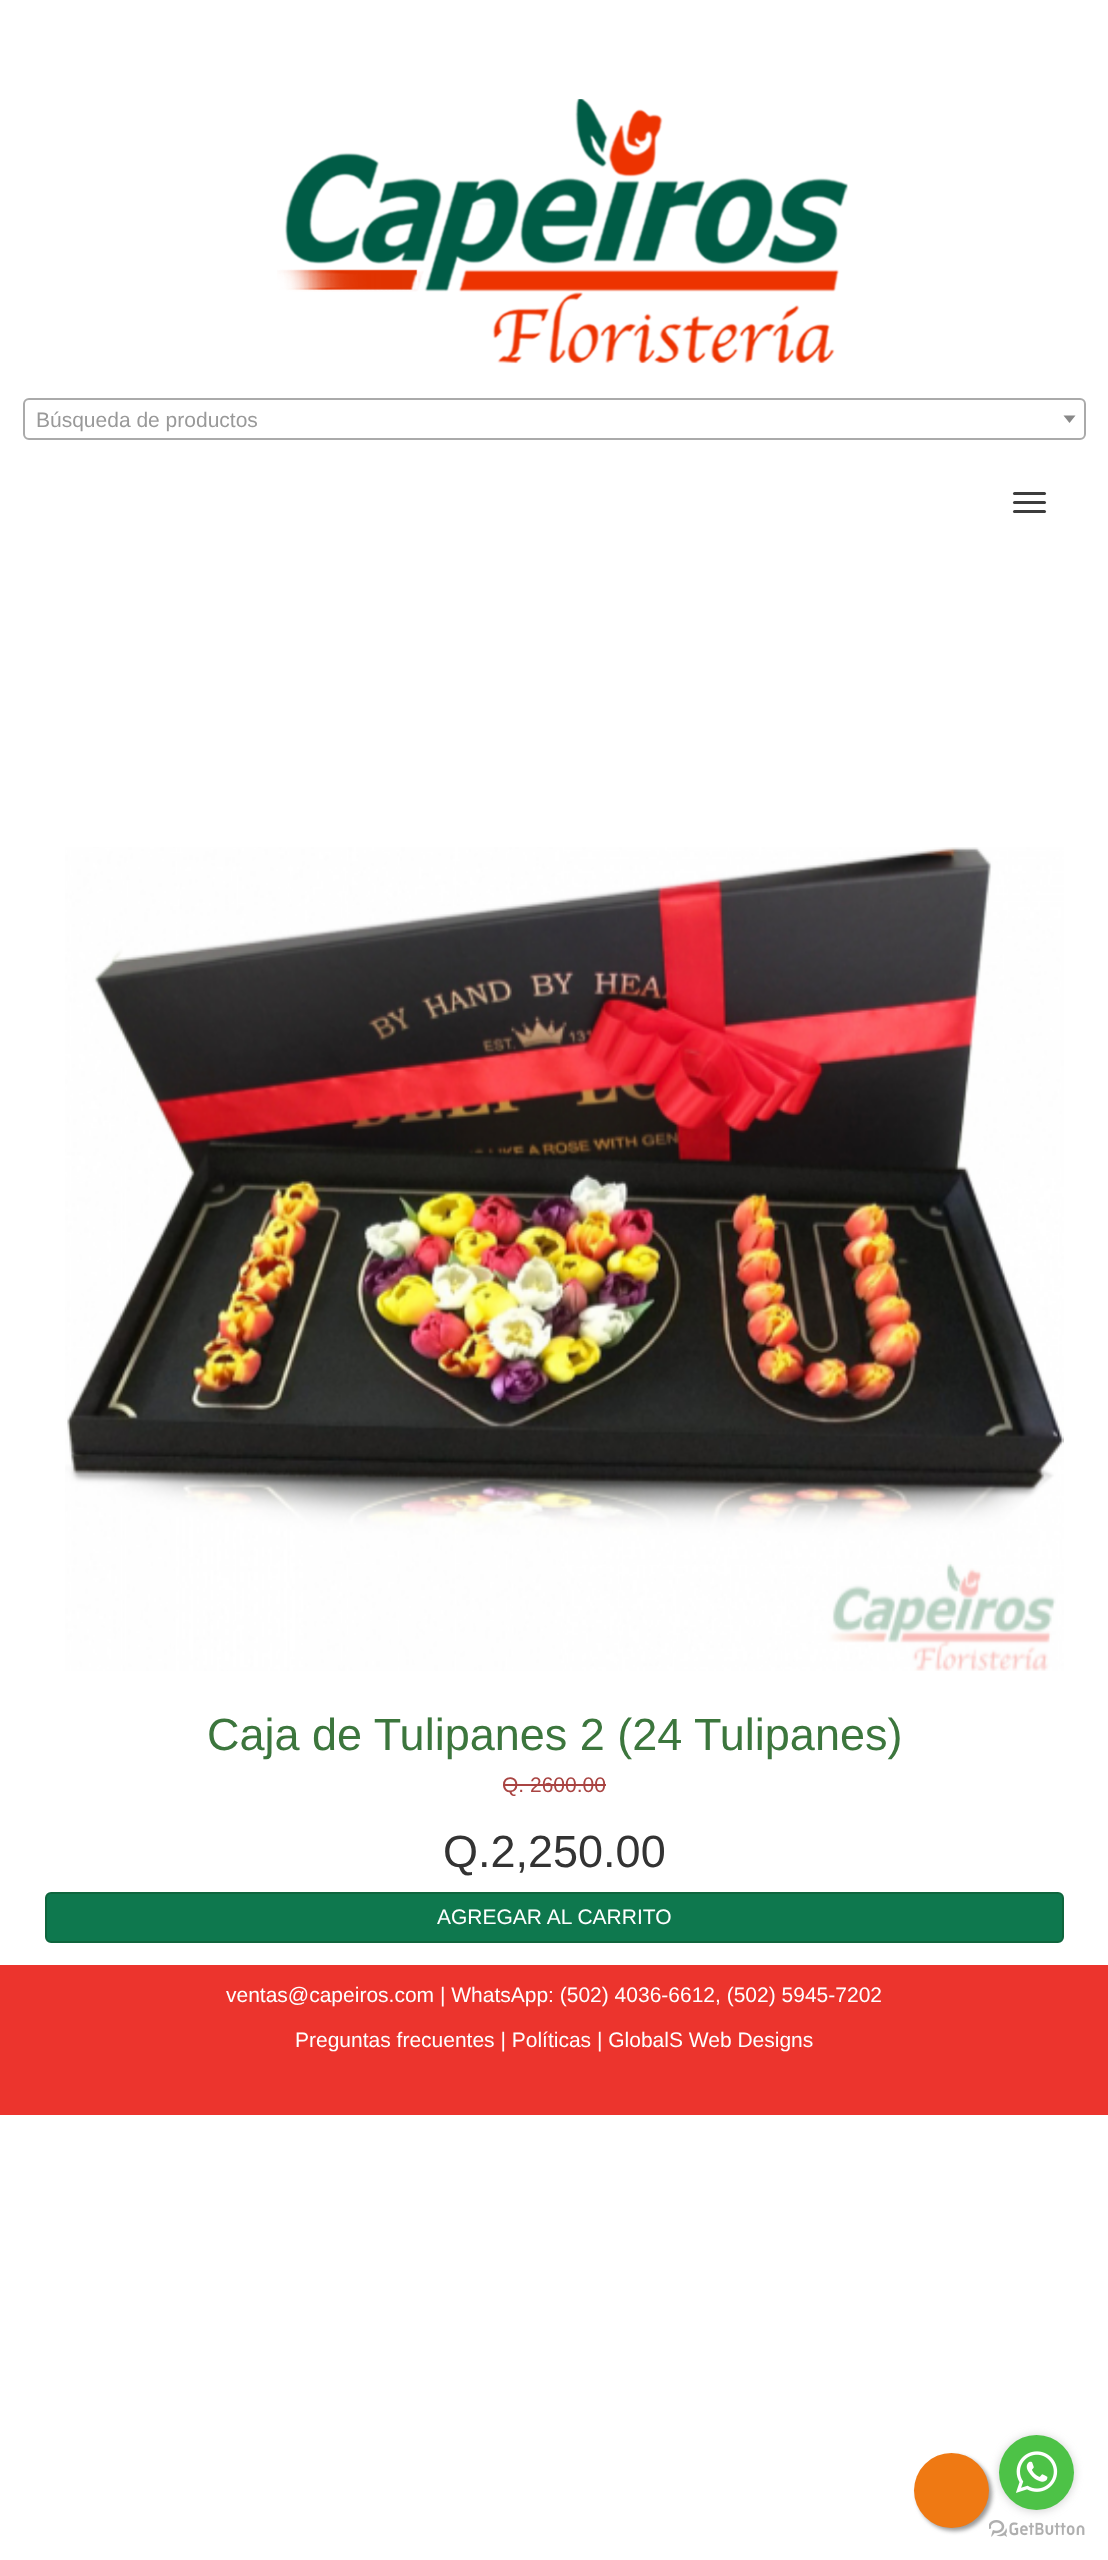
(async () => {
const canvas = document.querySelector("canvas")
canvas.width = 1108
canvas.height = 2560
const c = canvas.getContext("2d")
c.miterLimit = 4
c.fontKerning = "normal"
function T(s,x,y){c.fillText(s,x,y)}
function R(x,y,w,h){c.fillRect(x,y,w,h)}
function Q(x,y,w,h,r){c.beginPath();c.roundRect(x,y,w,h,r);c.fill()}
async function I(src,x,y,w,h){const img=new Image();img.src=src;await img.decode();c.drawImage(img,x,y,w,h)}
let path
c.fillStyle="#fff"
R(0,0,1108,2560)
await I("1.png",277,99,571,265)
c.beginPath()
c.roundRect(24,399,1061,40,5)
c.strokeStyle="#aaa"
c.lineWidth=2
c.stroke()
c.font="21px Liberation Sans"
c.fillStyle="#999"
T("Búsqueda de productos",36,427)
c.fillStyle="#888"
path = new Path2D("M1063.5 415.5h12l-6 7.5z")
c.fill(path)
c.fillStyle="#3c3c3c"
Q(1013,492,33,3,1.5)
Q(1013,501,33,3,1.5)
Q(1013,510,33,3,1.5)
await I("2.png",65,847,999,824)
c.font="45px Liberation Sans"
c.fillStyle="#3c763d"
T("Caja de Tulipanes 2 (24 Tulipanes)",207,1750)
c.font="21px Liberation Sans"
c.fillStyle="#a94442"
T("Q. 2600.00",502,1792)
R(503,1784,103,2)
c.font="45px Liberation Sans"
c.fillStyle="#333"
T("Q.2,250.00",443,1867)
c.fillStyle="#0e784e"
c.beginPath()
c.roundRect(46,1893,1017,49,5)
c.fill()
c.strokeStyle="#0e653d"
c.stroke()
c.font="21px Liberation Sans"
c.fillStyle="#fff"
T("AGREGAR AL CARRITO",437,1924)
c.fillStyle="#ec342d"
R(0,1965,1108,150)
c.fillStyle="#fff"
T("ventas@capeiros.com | WhatsApp: (502) 4036-6612, (502) 5945-7202",226,2002)
T("Preguntas frecuentes | Políticas | GlobalS Web Designs",295,2047)
c.fillStyle="#999"
c.filter="blur(2px)"
c.beginPath()
c.roundRect(917,2456,75,75,37.5)
c.fill()
c.filter="none"
c.fillStyle="#ef7913"
c.beginPath()
c.arc(951.5,2490.5,37.5,0,7)
c.fill()
await I("4.png",989,2520,96,17)
c.fillStyle="#88888866"
c.filter="blur(5px)"
c.beginPath()
c.roundRect(999,2436,75,75,37.5)
c.fill()
c.filter="none"
c.fillStyle="#4dc247"
c.beginPath()
c.arc(1036.5,2472.5,37.5,0,7)
c.fill()
await I("3.png",1016,2451,42,42)
})()
